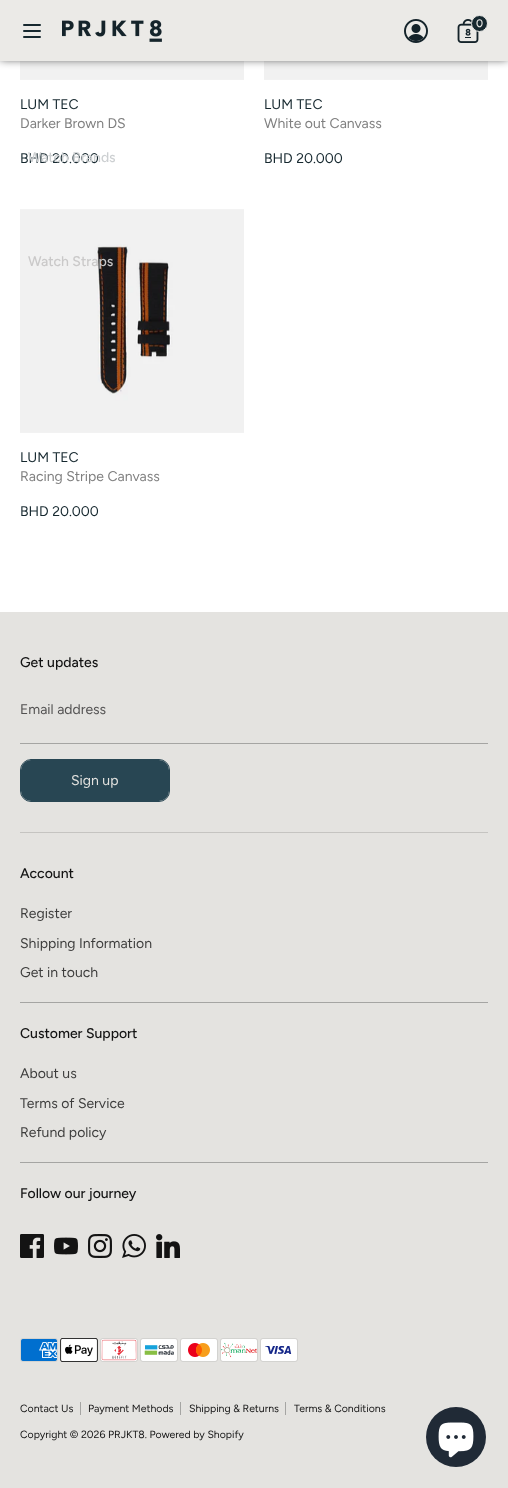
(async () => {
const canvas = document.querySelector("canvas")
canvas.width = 508
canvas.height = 1488
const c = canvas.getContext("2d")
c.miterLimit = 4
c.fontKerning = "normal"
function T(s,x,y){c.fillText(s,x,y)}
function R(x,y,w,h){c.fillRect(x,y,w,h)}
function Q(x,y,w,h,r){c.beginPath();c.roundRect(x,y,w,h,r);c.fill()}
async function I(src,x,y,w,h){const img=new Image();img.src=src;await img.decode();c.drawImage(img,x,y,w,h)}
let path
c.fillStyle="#fff"
R(0,0,508,1488)
await I("4.png",20,61,224,19)
await I("4.png",264,61,224,19)
c.fillStyle="#000000bf"
c.filter="blur(5px)"
c.beginPath()
c.rect(0,-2,508,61)
c.fill()
c.filter="none"
c.fillStyle="#ebeae7"
R(0,0,508,61)
path = new Path2D("M24 31h16m-16-6h16m-16 12h16")
c.strokeStyle="#16282f"
c.lineWidth=2
c.lineCap="round"
c.lineJoin="round"
c.stroke(path)
await I("1.png",62,20,100,22)
await I("2.png",404,19,24,24)
await I("3.png",457,19,22,24)
c.fillStyle="#16282f"
c.beginPath()
c.arc(479.5,23.5,8,0,7)
c.fill()
c.strokeStyle="#ebeae7"
c.lineWidth=1
c.stroke()
c.font="500 11px Figtree"
c.fillStyle="#ebeae7"
T("0",476,27)
c.font="14px Figtree"
c.fillStyle="#16282f"
T("BHD 20.000",20,163)
c.font="500 14px Figtree"
c.fillStyle="#cdd0d2"
T("Watch Brands",28,162)
await I("5.png",20,209,224,224)
c.fillStyle="#cac9c9"
T("Watch Straps",28,266)
c.font="14px Figtree"
c.fillStyle="#16282f"
T("LUM TEC",20,109)
c.fillStyle="#808080"
T("Darker Brown DS",20,128)
c.fillStyle="#16282f"
T("LUM TEC",264,109)
c.fillStyle="#808080"
T("White out Canvass",264,128)
c.fillStyle="#16282f"
T("BHD 20.000",264,163)
T("LUM TEC",20,462)
c.fillStyle="#808080"
T("Racing Stripe Canvass",20,481)
c.fillStyle="#16282f"
T("BHD 20.000",20,516)
c.fillStyle="#e4e3e0"
R(0,612,508,876)
c.font="500 14px Figtree"
c.fillStyle="#131313"
T("Get updates",20,667)
c.fillStyle="#a5a5a3"
R(20,743,468,1)
c.font="14px Figtree"
c.fillStyle="#525151"
T("Email address",20,714)
c.beginPath()
c.roundRect(20.5,759.5,149,42,10.5)
c.strokeStyle="#284653"
c.lineJoin="miter"
c.stroke()
c.fillStyle="#284653"
Q(21,760,148,41,10)
c.fillStyle="#e4e3e0"
T("Sign up",71,785)
c.fillStyle="#c5c4c1"
R(20,832,468,1)
c.fillStyle="#a5a5a3"
R(20,1002,468,1)
c.font="500 14px Figtree"
c.fillStyle="#131313"
T("Account",20,878)
c.font="14px Figtree"
c.fillStyle="#3d3d3c"
T("Register",20,918)
T("Shipping Information",20,948)
T("Get in touch",20,977)
c.fillStyle="#a5a5a3"
R(20,1162,468,1)
c.font="500 14px Figtree"
c.fillStyle="#131313"
T("Customer Support",20,1038)
c.font="14px Figtree"
c.fillStyle="#3d3d3c"
T("About us",20,1078)
T("Terms of Service",20,1108)
T("Refund policy",20,1137)
c.font="500 14px Figtree"
c.fillStyle="#131313"
T("Follow our journey",20,1198)
await I("6.png",20,1234,24,24)
await I("7.png",54,1237,24,18)
await I("8.png",88,1234,24,24)
await I("9.png",122,1234,24,24)
await I("10.png",156,1234,24,24)
await I("11.png",20,1338,38,24)
await I("12.png",60,1338,38,24)
await I("13.png",100,1338,38,24)
await I("14.png",140,1338,38,24)
await I("15.png",180,1338,38,24)
await I("16.png",220,1338,38,24)
await I("17.png",260,1338,38,24)
c.font="10.5px Figtree"
T("Contact Us",20,1412)
c.fillStyle="#a5a5a3"
R(80,1402,1,13)
c.fillStyle="#131313"
T("Payment Methods",88,1412)
c.fillStyle="#a5a5a3"
R(180,1402,1,13)
c.fillStyle="#131313"
T("Shipping & Returns",189,1412)
c.fillStyle="#a5a5a3"
R(285,1402,1,13)
c.fillStyle="#131313"
T("Terms & Conditions",294,1412)
T("Copyright © 2026 PRJKT8. Powered by Shopify",20,1438)
c.fillStyle="#202a36"
c.beginPath()
c.arc(456,1437,30,0,7)
c.fill()
await I("18.png",438,1422,36,36)
})()
